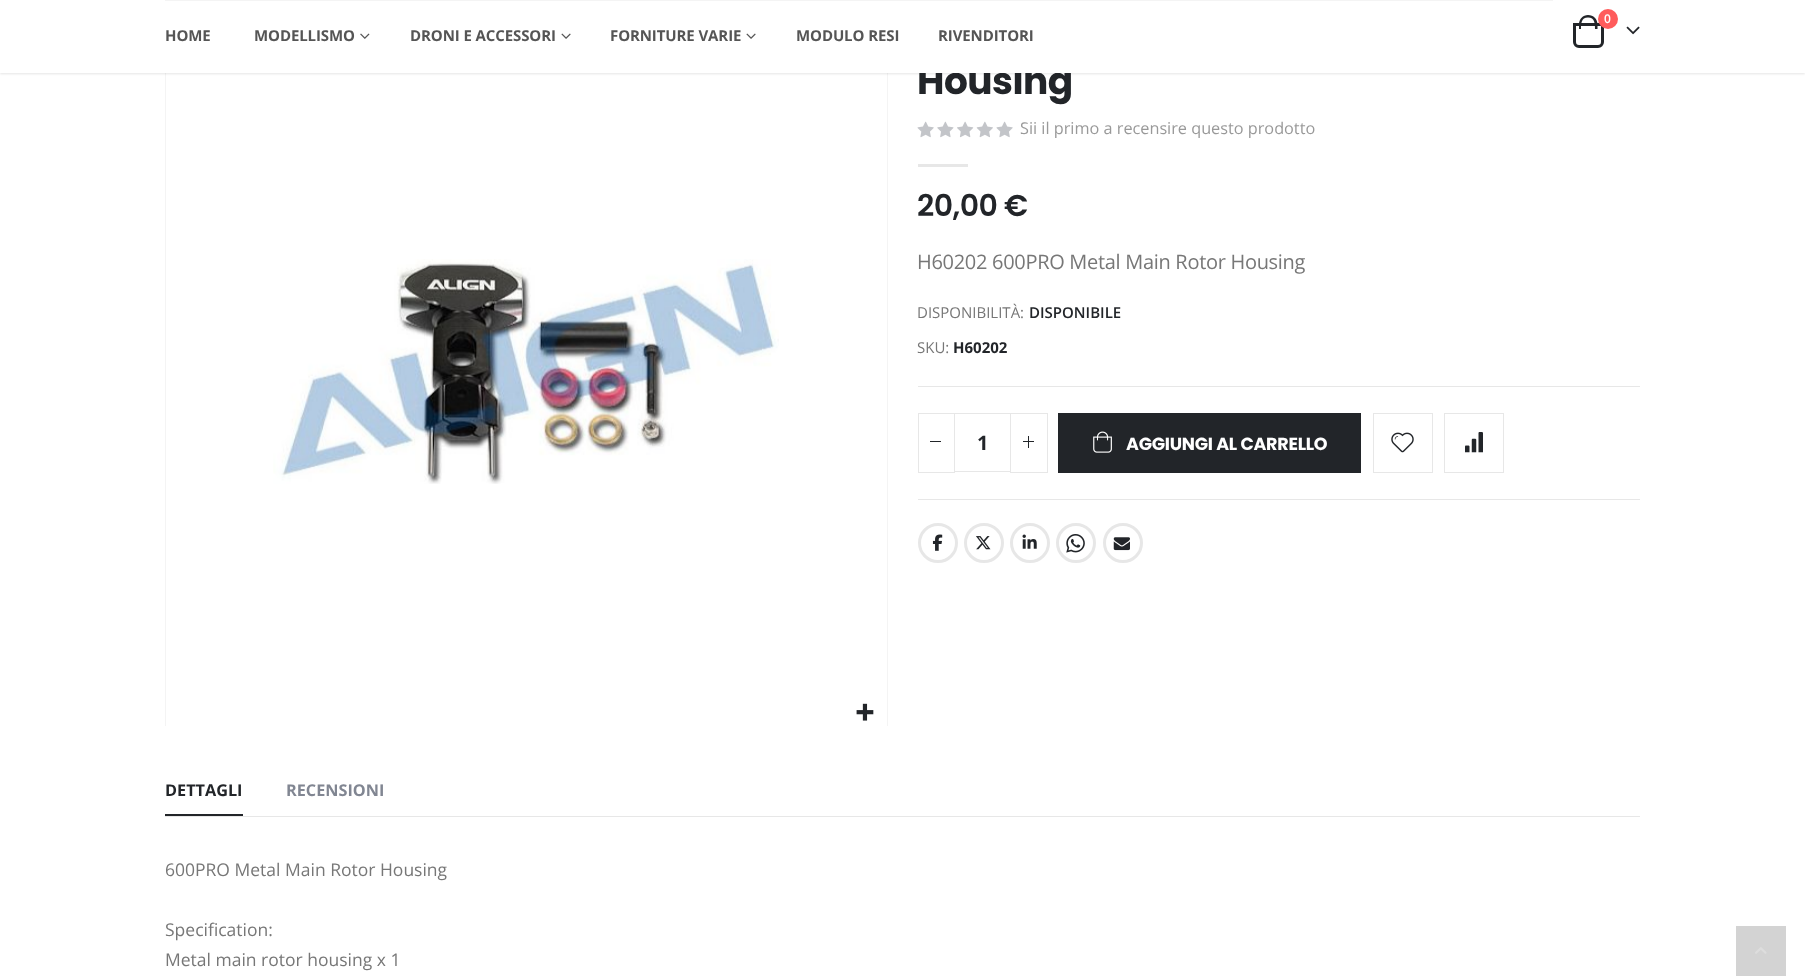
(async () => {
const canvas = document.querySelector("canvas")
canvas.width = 1805
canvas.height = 976
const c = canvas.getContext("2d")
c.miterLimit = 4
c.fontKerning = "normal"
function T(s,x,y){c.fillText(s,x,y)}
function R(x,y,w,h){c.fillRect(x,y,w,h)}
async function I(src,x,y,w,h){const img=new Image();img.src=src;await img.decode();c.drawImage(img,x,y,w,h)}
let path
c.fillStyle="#fff"
R(0,0,1805,976)
c.save()
c.beginPath()
c.rect(165,14,723,712)
c.clip()
c.strokeStyle="#f4f4f4"
c.strokeRect(165.5,14.5,722,721)
c.restore()
c.fillStyle="#0000001a"
c.filter="blur(1px)"
c.beginPath()
c.rect(0,1,1805,73)
c.fill()
c.filter="none"
c.letterSpacing="-0.5px"
c.font="bold 37.5px Poppins"
c.fillStyle="#222529"
T("Housing",917,94)
c.fillStyle="#fff"
R(0,0,1805,73)
c.beginPath()
c.roundRect(1574.5,24.5,28,22,[0,0,4.5,4.5])
c.strokeStyle="#222529"
c.lineWidth=3
c.stroke()
c.fillStyle="#222529"
path = new Path2D("M1588 15c5.5 0 9.5 4 9.5 9.5v4.5h-18.5v-4.5c0-5.5 4-9.5 9-9.5zm0 2.5c7 0 7 6.5 7 11.5h-14c0-5 0-11.5 7-11.5z")
c.fill(path,"evenodd")
c.fillStyle="#ff5b5b"
c.beginPath()
c.arc(1608,19,10,0,7)
c.fill()
c.letterSpacing="0px"
c.font="600 12px Open Sans"
c.fillStyle="#fff"
T("0",1604,23)
await I("1.png",1626,26,14,9)
c.fillStyle="#f4f4f4"
R(165,0,1388,1)
c.letterSpacing="-0.1px"
c.font="bold 15px Open Sans"
c.fillStyle="#555"
T("HOME",165,41)
T("MODELLISMO",254,41)
await I("2.png",360,33,10,6)
T("DRONI E ACCESSORI",410,41)
await I("3.png",561,33,10,6)
T("FORNITURE VARIE",610,41)
await I("3.png",746,33,10,6)
T("MODULO RESI",796,41)
T("RIVENDITORI",938,41)
await I("4.png",273,259,506,225)
await I("5.png",856,703,18,18)
await I("6.png",917,121,96,17)
c.letterSpacing="0px"
c.font="16.25px Open Sans"
c.fillStyle="#999"
T("Sii il primo a recensire questo prodotto",1020,134)
c.fillStyle="#e7e7e7"
R(918,164,50,3)
c.letterSpacing="-0.5px"
c.font="600 30px Poppins"
c.fillStyle="#222529"
T("20,00 €",917,216)
c.letterSpacing="-0.3px"
c.font="20px Open Sans"
c.fillStyle="#777"
T("H60202 600PRO Metal Main Rotor Housing",917,269)
c.letterSpacing="0px"
c.font="15px Open Sans"
T("DISPONIBILITÀ:",917,318)
c.font="600 15px Open Sans"
c.fillStyle="#222529"
T("DISPONIBILE",1029,318)
c.font="15px Open Sans"
c.fillStyle="#777"
T("SKU:",917,353)
c.font="bold 15px Open Sans"
c.fillStyle="#222529"
T("H60202",953,353)
c.fillStyle="#e7e7e7"
R(918,386,722,1)
R(918,499,722,1)
c.strokeStyle="#e7e7e7"
c.lineWidth=1
c.strokeRect(918.5,413.5,36,59)
c.fillStyle="#222529"
R(930,441,11,1)
c.strokeRect(1010.5,413.5,37,59)
R(1023,441,11,1)
R(1028,436,1,12)
c.fillStyle="#e7e7e7"
R(955,413,55,1)
R(955,471,55,1)
c.font="bold 20px Open Sans"
c.fillStyle="#222529"
T("1",977,450)
R(1058,413,303,60)
await I("7.png",1093,431,19,22)
c.letterSpacing="-0.25px"
c.font="bold 17.5px Poppins"
c.fillStyle="#fff"
T("AGGIUNGI AL CARRELLO",1126,450)
c.strokeRect(1373.5,413.5,59,59)
await I("8.png",1391,432,23,21)
c.strokeRect(1444.5,413.5,59,59)
await I("9.png",1465,432,18,21)
c.beginPath()
c.arc(938,543,18.5,0,7)
c.lineWidth=3
c.stroke()
await I("10.png",932,534,11,17)
c.beginPath()
c.arc(984,543,18.5,0,7)
c.stroke()
await I("11.png",976,536,15,14)
c.beginPath()
c.arc(1030,543,18.5,0,7)
c.stroke()
await I("12.png",1022,534,15,15)
c.beginPath()
c.arc(1076,543,18.5,0,7)
c.stroke()
await I("13.png",1066,534,19,19)
c.beginPath()
c.arc(1123,543,18.5,0,7)
c.stroke()
await I("14.png",1113,537,17,14)
c.fillStyle="#222529"
R(165,814,78,2)
c.letterSpacing="0px"
c.font="bold 16.25px Open Sans"
T("DETTAGLI",165,796)
c.fillStyle="#818692"
T("RECENSIONI",286,796)
c.fillStyle="#e7e7e7"
R(165,816,1475,1)
c.font="17.5px Open Sans"
c.fillStyle="#777"
T("600PRO Metal Main Rotor Housing",165,876)
T("Specification:",165,936)
T("Metal main rotor housing x 1",165,966)
c.fillStyle="#d3d3d3"
R(1736,926,50,50)
await I("15.png",1755,947,12,7)
})()
